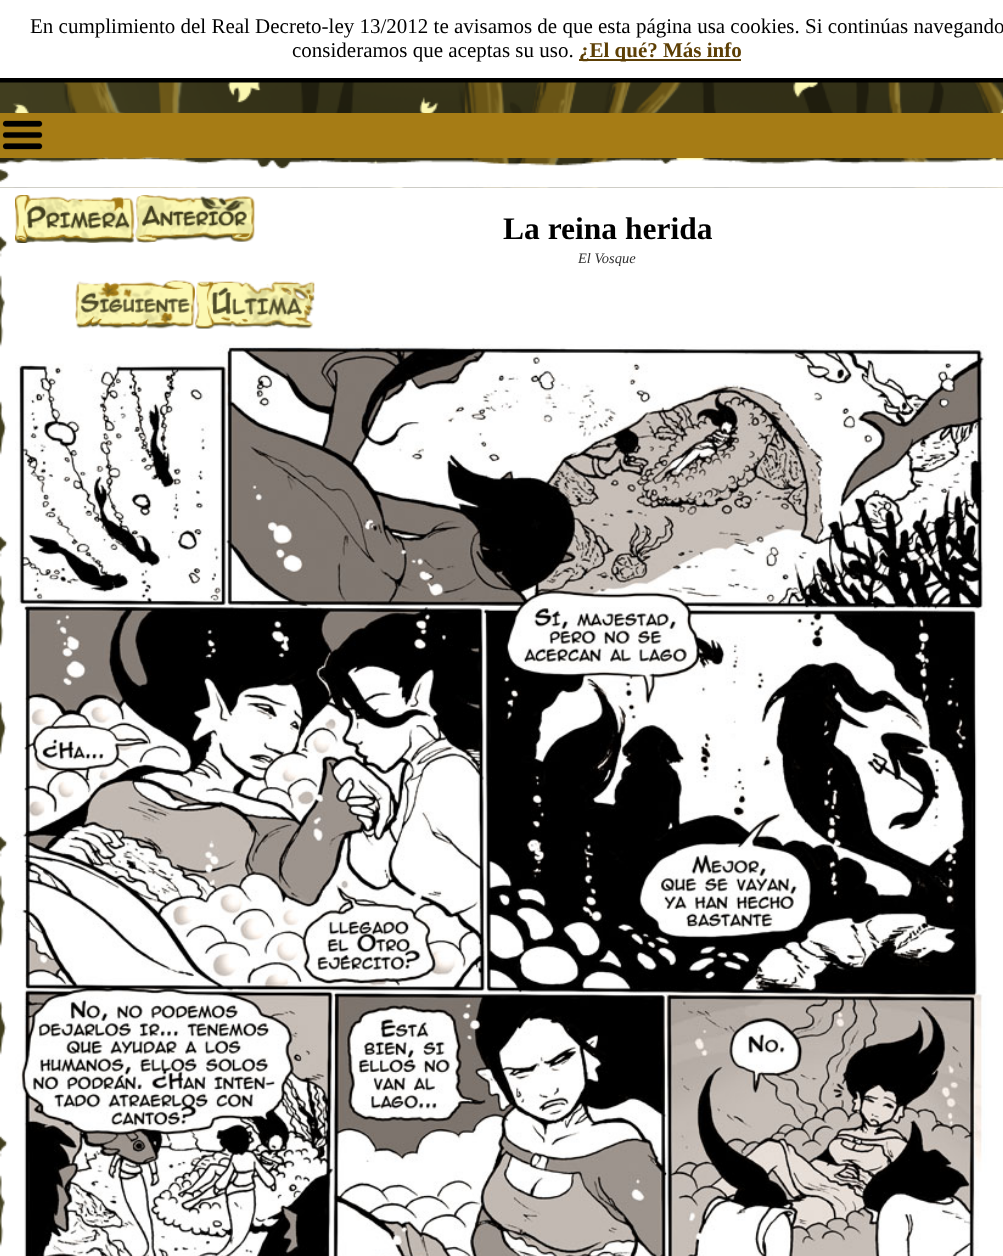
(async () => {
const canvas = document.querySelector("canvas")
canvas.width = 1003
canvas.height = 1256
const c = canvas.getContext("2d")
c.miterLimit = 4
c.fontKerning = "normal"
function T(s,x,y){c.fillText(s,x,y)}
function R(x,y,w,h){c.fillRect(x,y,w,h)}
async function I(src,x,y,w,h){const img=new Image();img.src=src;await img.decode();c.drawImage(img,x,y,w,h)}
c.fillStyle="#413e1e"
R(0,0,1003,1256)
c.fillStyle="#fff"
R(0,0,1003,78)
c.fillStyle="#000"
R(0,78,1003,5)
c.font="21px Liberation Serif"
T("En cumplimiento del Real Decreto-ley 13/2012 te avisamos de que esta página usa cookies. Si continúas navegando",30,33)
T("consideramos que aceptas su uso.",292,57)
c.fillStyle="#5d3f05"
R(579,59,162,2)
c.font="bold 21px Liberation Serif"
T("¿El qué? Más info",579,57)
await I("1.png",0,82,1003,226)
c.fillStyle="#a67c15"
R(0,113,1003,45)
await I("2.png",2,120,41,30)
await I("3.png",0,157,1003,31)
await I("4.png",0,187,1003,1069)
await I("5.png",15,195,120,48)
await I("6.png",135,195,120,48)
c.font="bold 31.5px Liberation Serif"
c.fillStyle="#000"
T("La reina herida",503,239)
c.font="italic 14.5px Liberation Serif"
c.fillStyle="#313131"
T("El Vosque",578,263)
await I("7.png",75,280,120,49)
await I("8.png",195,281,120,48)
await I("9.png",15,344,972,912)
})()
